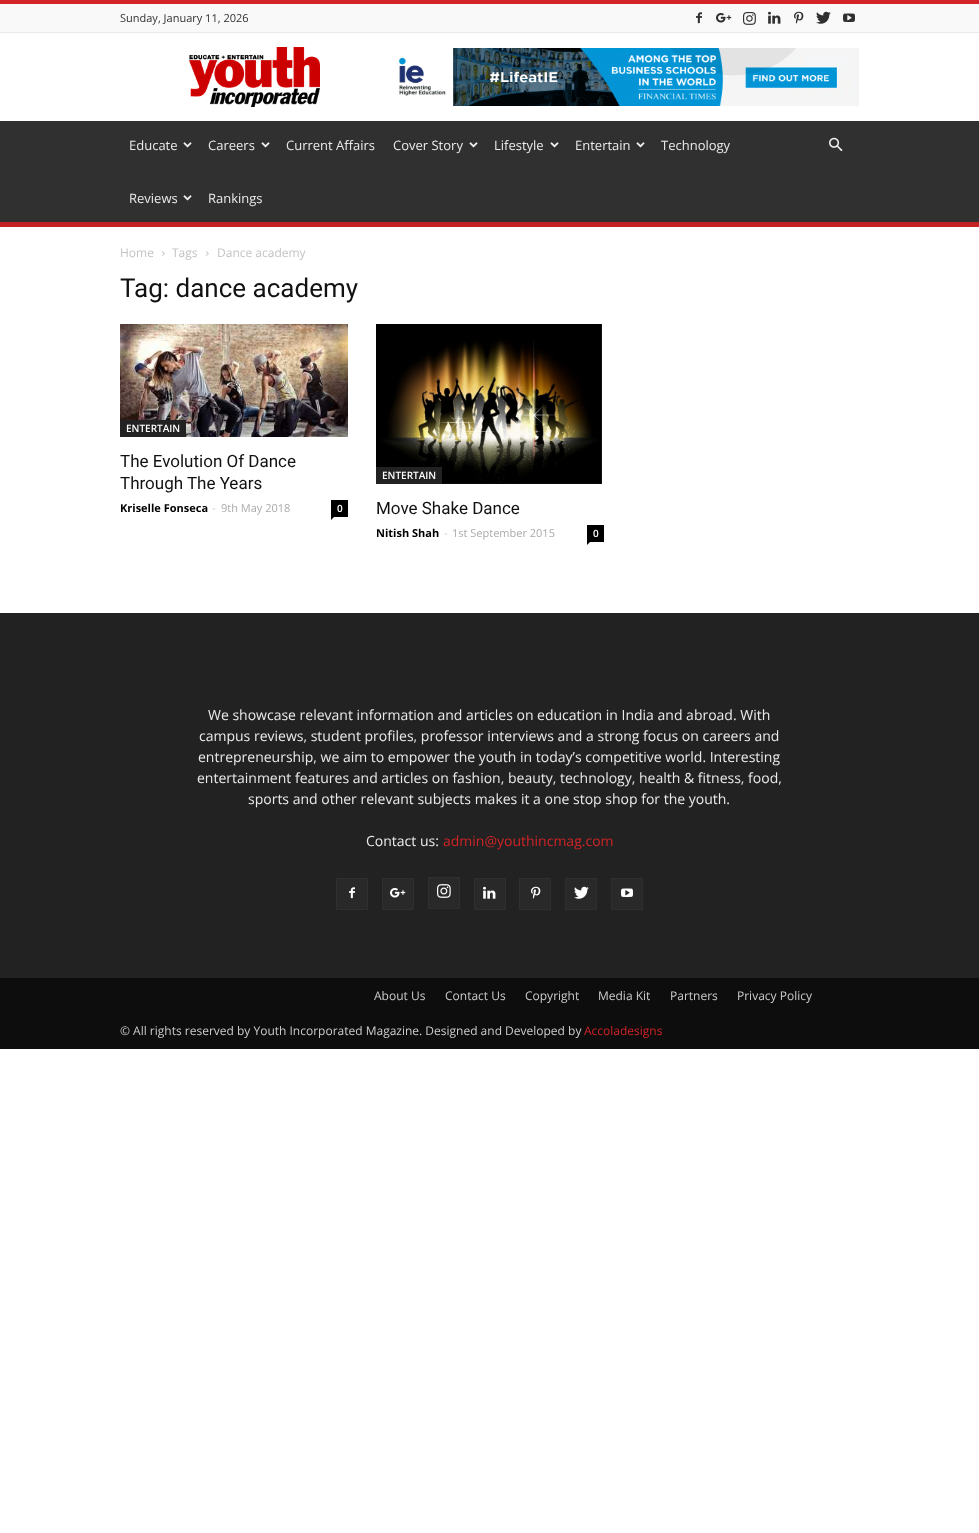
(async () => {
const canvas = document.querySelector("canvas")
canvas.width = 979
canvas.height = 1533
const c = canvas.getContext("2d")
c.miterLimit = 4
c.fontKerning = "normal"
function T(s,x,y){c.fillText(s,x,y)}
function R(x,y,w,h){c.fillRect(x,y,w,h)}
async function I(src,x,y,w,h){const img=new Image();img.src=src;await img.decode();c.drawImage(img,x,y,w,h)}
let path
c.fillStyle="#fff"
R(0,0,979,1533)
c.fillStyle="#f9f9f9"
R(0,4,979,28)
c.fillStyle="#d22427"
R(0,0,979,4)
c.fillStyle="#e9e9e9"
R(0,32,979,1)
c.font="11px Open Sans"
c.fillStyle="#2f2f2f"
T("Sunday, January 11, 2026",120,22)
await I("1.png",696,12,6,12)
await I("2.png",716,13,16,10)
await I("3.png",743,12,13,13)
await I("4.png",768,11,13,13)
await I("5.png",794,11,10,13)
await I("6.png",816,11,15,13)
await I("7.png",843,13,12,9)
await I("8.png",189,47,131,60)
await I("9.png",398,48,461,58)
c.fillStyle="#303030"
R(0,121,979,101)
c.font="13px Open Sans"
c.fillStyle="#eaeaea"
T("Educate",129,150)
await I("10.png",183,142,9,6)
T("Careers",208,150)
await I("10.png",261,142,9,6)
T("Current Affairs",286,150)
T("Cover Story",393,150)
await I("10.png",469,142,9,6)
T("Lifestyle",494,150)
await I("10.png",550,142,9,6)
T("Entertain",575,150)
await I("10.png",636,142,9,6)
T("Technology",661,150)
T("Reviews",129,203)
await I("10.png",183,195,9,6)
T("Rankings",208,203)
await I("11.png",829,137,14,15)
c.fillStyle="#d22427"
R(0,222,979,5)
await I("12.png",0,222,979,5)
c.font="12px Open Sans"
c.fillStyle="#c3c3c3"
T("Home",120,257)
await I("13.png",162,251,3,5)
T("Tags",172,257)
await I("13.png",206,251,3,5)
T("Dance academy",217,257)
c.font="26px Roboto"
c.fillStyle="#111"
T("Tag: dance academy",120,297)
await I("14.png",120,324,228,113)
c.fillStyle="#222"
R(120,420,66,17)
c.font="600 10px Open Sans"
c.fillStyle="#fff"
T("ENTERTAIN",126,432)
c.font="17px Roboto"
c.fillStyle="#111"
T("The Evolution Of Dance",120,467)
T("Through The Years",120,489)
c.font="bold 11px Open Sans"
c.fillStyle="#000"
T("Kriselle Fonseca",120,512)
c.font="11px Open Sans"
c.fillStyle="#ccc"
T("-",212,512)
c.fillStyle="#aaa"
T("9th May 2018",221,512)
c.fillStyle="#000"
R(331,500,17,17)
c.font="600 10px Open Sans"
c.fillStyle="#fff"
T("0",337,512)
c.fillStyle="#000"
path = new Path2D("M331 517h3l-3 3z")
c.fill(path)
await I("15.png",376,324,226,160)
c.fillStyle="#222"
R(376,467,66,17)
c.fillStyle="#fff"
T("ENTERTAIN",382,479)
c.font="17px Roboto"
c.fillStyle="#111"
T("Move Shake Dance",376,514)
c.font="bold 11px Open Sans"
c.fillStyle="#000"
T("Nitish Shah",376,537)
c.font="11px Open Sans"
c.fillStyle="#ccc"
T("-",444,537)
c.fillStyle="#aaa"
T("1st September 2015",452,537)
c.fillStyle="#000"
R(587,525,17,17)
c.font="600 10px Open Sans"
c.fillStyle="#fff"
T("0",593,537)
c.fillStyle="#000"
path = new Path2D("M587 542h3l-3 3z")
c.fill(path)
c.fillStyle="#222"
R(0,613,979,365)
c.font="14px Open Sans"
c.fillStyle="#eaeaea"
T("We showcase relevant information and articles on education in India and abroad. With",208,720)
T("campus reviews, student profiles, professor interviews and a strong focus on careers and",199,741)
T("entrepreneurship, we aim to empower the youth in today’s competitive world. Interesting",198,762)
T("entertainment features and articles on fashion, beauty, technology, health & fitness, food,",197,783)
T("sports and other relevant subjects makes it a one stop shop for the youth.",248,804)
T("Contact us:",366,846)
c.fillStyle="#d22427"
T("admin@youthincmag.com",443,846)
c.fillStyle="#292929"
R(337,879,30,30)
await I("16.png",349,887,6,12)
c.strokeStyle="#2f2f2f"
c.strokeRect(336.5,878.5,31,31)
R(383,879,30,30)
await I("17.png",390,888,16,10)
c.strokeRect(382.5,878.5,31,31)
R(429,878,30,30)
await I("18.png",437,884,14,14)
c.strokeRect(428.5,877.5,31,31)
R(475,879,30,30)
await I("19.png",483,886,13,13)
c.strokeRect(474.5,878.5,31,31)
R(520,879,30,30)
await I("20.png",531,886,10,13)
c.strokeRect(519.5,878.5,31,31)
R(566,879,30,30)
await I("21.png",574,886,15,13)
c.strokeRect(565.5,878.5,31,31)
R(612,879,30,30)
await I("22.png",621,888,12,9)
c.strokeRect(611.5,878.5,31,31)
c.fillStyle="#0d0d0d"
R(0,978,979,71)
c.font="12px Open Sans"
c.fillStyle="#ccc"
T("About Us",374,1000)
T("Contact Us",445,1000)
T("Copyright",525,1000)
T("Media Kit",598,1000)
T("Partners",670,1000)
T("Privacy Policy",737,1000)
T("© All rights reserved by Youth Incorporated Magazine. Designed and Developed by",120,1035)
c.fillStyle="#d22427"
T("Accoladesigns",584,1035)
})()
